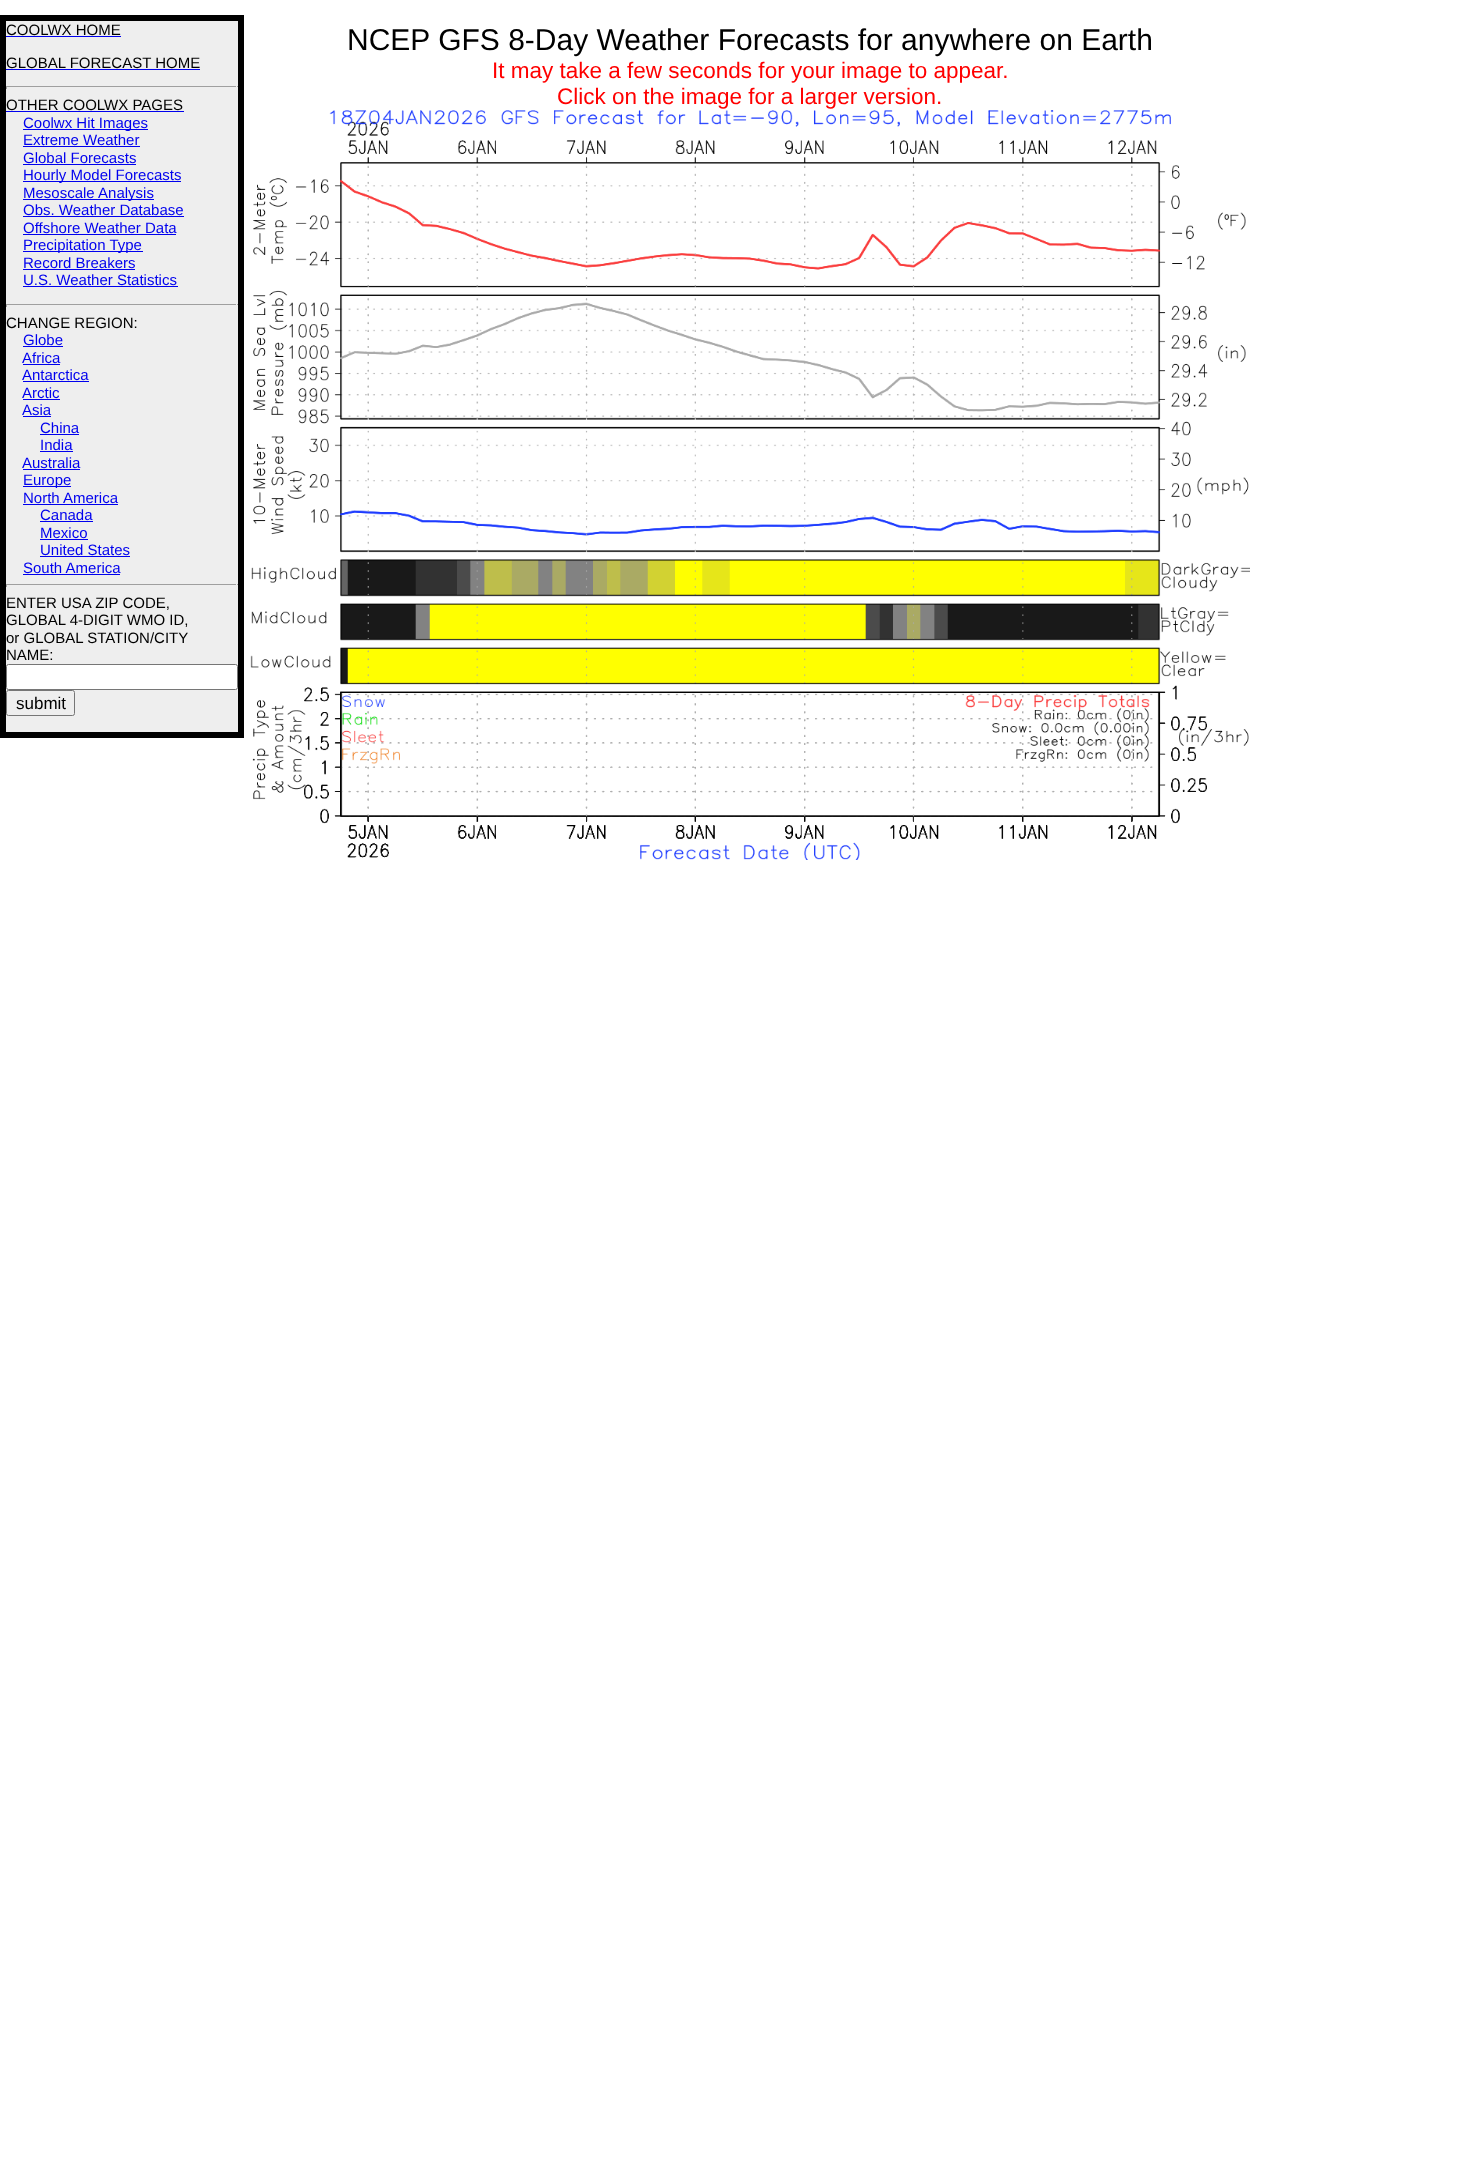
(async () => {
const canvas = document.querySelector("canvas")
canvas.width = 1469
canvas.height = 2181
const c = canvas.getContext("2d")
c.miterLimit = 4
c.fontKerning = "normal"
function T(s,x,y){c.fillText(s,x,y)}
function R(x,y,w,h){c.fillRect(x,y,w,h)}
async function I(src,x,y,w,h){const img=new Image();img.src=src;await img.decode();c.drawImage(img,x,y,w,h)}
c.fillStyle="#fff"
R(0,0,1469,2181)
c.fillStyle="#eee"
c.beginPath()
c.rect(3,18,238,717)
c.fill()
c.strokeStyle="#000"
c.lineWidth=6
c.stroke()
c.font="15px Liberation Sans"
c.fillStyle="#000"
T("COOLWX HOME",6,35)
c.fillStyle="#00e"
R(6,36,115,1)
c.fillStyle="#000"
T("GLOBAL FORECAST HOME",6,68)
c.fillStyle="#00e"
R(6,69,194,1)
c.fillStyle="#9f9f9f"
R(6,86,232,1)
c.fillStyle="#eee"
R(236,86,1,3)
c.fillStyle="#9f9f9f"
R(6,86,1,3)
c.fillStyle="#000"
T("OTHER COOLWX PAGES",6,110)
c.fillStyle="#00e"
R(6,111,178,1)
R(23,129,125,1)
T("Coolwx Hit Images",23,128)
T("Extreme Weather",23,145)
R(23,146,117,1)
T("Global Forecasts",23,163)
R(23,164,113,1)
R(23,181,158,1)
T("Hourly Model Forecasts",23,180)
R(23,199,131,1)
T("Mesoscale Analysis",23,198)
T("Obs. Weather Database",23,215)
R(23,216,161,1)
T("Offshore Weather Data",23,233)
R(23,234,153,1)
R(23,251,120,1)
T("Precipitation Type",23,250)
T("Record Breakers",23,268)
R(23,269,112,1)
T("U.S. Weather Statistics",23,285)
R(23,286,155,1)
c.fillStyle="#9f9f9f"
R(6,304,232,1)
c.fillStyle="#eee"
R(236,304,1,3)
c.fillStyle="#9f9f9f"
R(6,304,1,3)
c.fillStyle="#000"
T("CHANGE REGION:",6,328)
c.fillStyle="#00e"
T("Globe",23,345)
R(23,346,40,1)
T("Africa",22,363)
R(23,364,37,1)
T("Antarctica",22,380)
R(23,381,66,1)
T("Arctic",22,398)
R(23,399,37,1)
T("Asia",22,415)
R(23,416,28,1)
T("China",40,433)
R(40,434,39,1)
T("India",40,450)
R(40,451,33,1)
T("Australia",22,468)
R(23,469,57,1)
R(23,486,48,1)
T("Europe",23,485)
T("North America",23,503)
R(23,504,95,1)
T("Canada",40,520)
R(40,521,53,1)
T("Mexico",40,538)
R(40,539,48,1)
T("United States",40,555)
R(40,556,90,1)
T("South America",23,573)
R(23,574,97,1)
c.fillStyle="#9f9f9f"
R(6,584,232,1)
c.fillStyle="#eee"
R(236,584,1,3)
c.fillStyle="#9f9f9f"
R(6,584,1,3)
c.fillStyle="#000"
T("ENTER USA ZIP CODE,",6,608)
T("GLOBAL 4-DIGIT WMO ID,",6,625)
T("or GLOBAL STATION/CITY",6,643)
T("NAME:",6,660)
c.fillStyle="#fff"
c.beginPath()
c.roundRect(6.5,664.5,231,25,2)
c.fill()
c.strokeStyle="#767676"
c.lineWidth=1
c.stroke()
c.beginPath()
c.roundRect(6.5,690.5,68,25,2)
c.stroke()
c.font="17px Liberation Sans"
c.fillStyle="#000"
T("submit",16,709)
c.font="30px Liberation Sans"
T("NCEP GFS 8-Day Weather Forecasts for anywhere on Earth",347,50)
c.font="22.5px Liberation Sans"
c.fillStyle="#f00"
T("It may take a few seconds for your image to appear.",492,78)
T("Click on the image for a larger version.",557,104)
await I("1.png",250,110,1000,750)
})()
